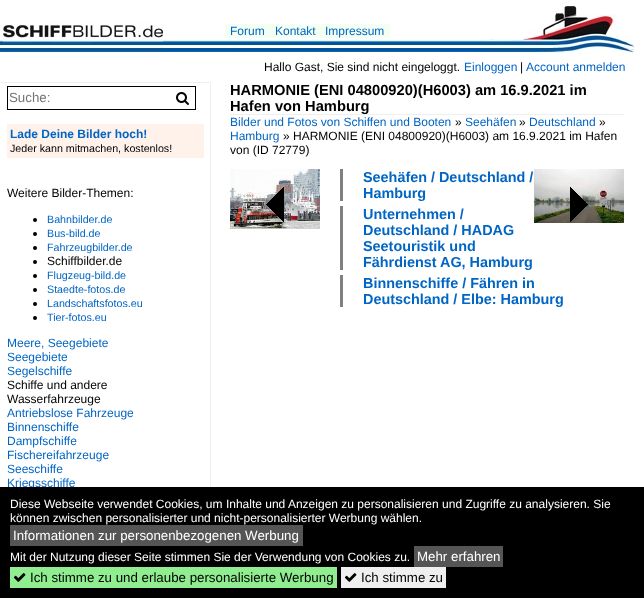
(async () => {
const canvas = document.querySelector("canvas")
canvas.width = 644
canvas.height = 598
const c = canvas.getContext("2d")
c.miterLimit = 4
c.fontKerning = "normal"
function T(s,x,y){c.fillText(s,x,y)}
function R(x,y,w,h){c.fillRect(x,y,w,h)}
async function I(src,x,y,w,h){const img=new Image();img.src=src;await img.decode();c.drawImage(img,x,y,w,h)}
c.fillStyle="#fff"
R(0,0,644,598)
await I("3.png",0,40,486,12)
await I("1.png",3,22,160,31)
c.fillStyle="#f4fff4"
R(225,24,165,14)
c.font="12px Liberation Sans"
c.fillStyle="#0065c4"
T("Forum",230,35)
T("Kontakt",275,35)
T("Impressum",325,35)
await I("2.png",486,6,148,48)
c.fillStyle="#000"
T("Hallo Gast, Sie sind nicht eingeloggt.",264,71)
c.fillStyle="#0065c4"
T("Einloggen",464,71)
c.fillStyle="#000"
T("|",520,71)
c.fillStyle="#0065c4"
T("Account anmelden",526,71)
c.fillStyle="#efefef"
R(0,82,211,1)
R(210,82,1,405)
c.fillStyle="#000"
R(7,86,189,1)
R(7,109,163,1)
R(7,86,1,24)
c.font="13.3px Liberation Sans"
c.fillStyle="#757575"
T("Suche:",9,102)
c.fillStyle="#000"
R(195,86,1,24)
R(170,109,26,1)
await I("4.png",176,92,13,13)
c.fillStyle="#fff2eb"
R(7,124,197,34)
c.font="bold 12px Liberation Sans"
c.fillStyle="#0065c4"
T("Lade Deine Bilder hoch!",10,138)
c.font="10.7px Liberation Sans"
c.fillStyle="#000"
T("Jeder kann mitmachen, kostenlos!",10,152)
c.font="12px Liberation Sans"
T("Weitere Bilder-Themen:",7,197)
c.beginPath()
c.arc(35,220,2,0,7)
c.fill()
c.font="10.7px Liberation Sans"
c.fillStyle="#0065c4"
T("Bahnbilder.de",47,223)
c.fillStyle="#000"
c.beginPath()
c.arc(35,234,2,0,7)
c.fill()
c.fillStyle="#0065c4"
T("Bus-bild.de",47,237)
c.fillStyle="#000"
c.beginPath()
c.arc(35,248,2,0,7)
c.fill()
c.fillStyle="#0065c4"
T("Fahrzeugbilder.de",47,251)
c.fillStyle="#000"
c.beginPath()
c.arc(35,262,2,0,7)
c.fill()
c.font="12px Liberation Sans"
T("Schiffbilder.de",47,265)
c.beginPath()
c.arc(35,276,2,0,7)
c.fill()
c.font="10.7px Liberation Sans"
c.fillStyle="#0065c4"
T("Flugzeug-bild.de",47,279)
c.fillStyle="#000"
c.beginPath()
c.arc(35,290,2,0,7)
c.fill()
c.fillStyle="#0065c4"
T("Staedte-fotos.de",47,293)
c.fillStyle="#000"
c.beginPath()
c.arc(35,304,2,0,7)
c.fill()
c.fillStyle="#0065c4"
T("Landschaftsfotos.eu",47,307)
c.fillStyle="#000"
c.beginPath()
c.arc(35,318,2,0,7)
c.fill()
c.fillStyle="#0065c4"
T("Tier-fotos.eu",47,321)
c.font="12px Liberation Sans"
T("Meere, Seegebiete",7,347)
T("Seegebiete",7,361)
T("Segelschiffe",7,375)
c.fillStyle="#000"
T("Schiffe und andere",7,389)
T("Wasserfahrzeuge",7,403)
c.fillStyle="#0065c4"
T("Antriebslose Fahrzeuge",7,417)
T("Binnenschiffe",7,431)
T("Dampfschiffe",7,445)
T("Fischereifahrzeuge",7,459)
T("Seeschiffe",7,473)
T("Kriegsschiffe",7,487)
c.fillStyle="#efefef"
R(230,114,394,1)
c.font="bold 14.7px Liberation Sans"
c.fillStyle="#000"
T("HARMONIE (ENI 04800920)(H6003) am 16.9.2021 im",230,95)
T("Hafen von Hamburg",230,111)
c.font="12px Liberation Sans"
c.fillStyle="#0065c4"
T("Bilder und Fotos von Schiffen und Booten",230,126)
c.fillStyle="#000"
T("»",455,126)
c.fillStyle="#0065c4"
T("Seehäfen",465,126)
c.fillStyle="#000"
T("»",519,126)
c.fillStyle="#0065c4"
T("Deutschland",529,126)
c.fillStyle="#000"
T("»",599,126)
c.fillStyle="#0065c4"
T("Hamburg",230,140)
c.fillStyle="#000"
T("» HARMONIE (ENI 04800920)(H6003) am 16.9.2021 im Hafen",283,140)
T("von (ID 72779)",230,154)
await I("5.png",230,169,90,60)
await I("6.png",266,187,18,35)
c.fillStyle="#808080"
R(340,169,3,32)
c.font="bold 14.4px Liberation Sans"
c.fillStyle="#0065c4"
T("Seehäfen / Deutschland /",363,182)
T("Hamburg",363,198)
c.fillStyle="#808080"
R(340,206,3,64)
c.fillStyle="#0065c4"
T("Unternehmen /",363,219)
T("Deutschland / HADAG",363,235)
T("Seetouristik und",363,251)
T("Fährdienst AG, Hamburg",363,267)
c.fillStyle="#808080"
R(340,275,3,32)
c.fillStyle="#0065c4"
T("Binnenschiffe / Fähren in",363,288)
T("Deutschland / Elbe: Hamburg",363,304)
await I("7.png",534,169,90,54)
await I("8.png",570,187,18,35)
c.fillStyle="#000"
R(0,487,644,111)
c.font="12px Liberation Sans"
c.fillStyle="#fff"
T("Diese Webseite verwendet Cookies, um Inhalte und Anzeigen zu personalisieren und Zugriffe zu analysieren. Sie",10,508)
T("können zwischen personalisierter und nicht-personalisierter Werbung wählen.",10,522)
c.fillStyle="#555"
R(10,525,293,21)
c.font="13.3px Liberation Sans"
c.fillStyle="#fff"
T("Informationen zur personenbezogenen Werbung",13,540)
c.font="12px Liberation Sans"
T("Mit der Nutzung dieser Seite stimmen Sie der Verwendung von Cookies zu.",10,561)
c.fillStyle="#555"
R(414,546,89,21)
c.font="13.3px Liberation Sans"
c.fillStyle="#fff"
T("Mehr erfahren",417,561)
c.fillStyle="#90ee90"
R(10,567,327,21)
await I("9.png",13,573,13,9)
c.fillStyle="#000"
T("Ich stimme zu und erlaube personalisierte Werbung",30,582)
c.fillStyle="#efefef"
R(341,567,105,21)
await I("10.png",344,573,13,9)
c.fillStyle="#000"
T("Ich stimme zu",361,582)
})()
